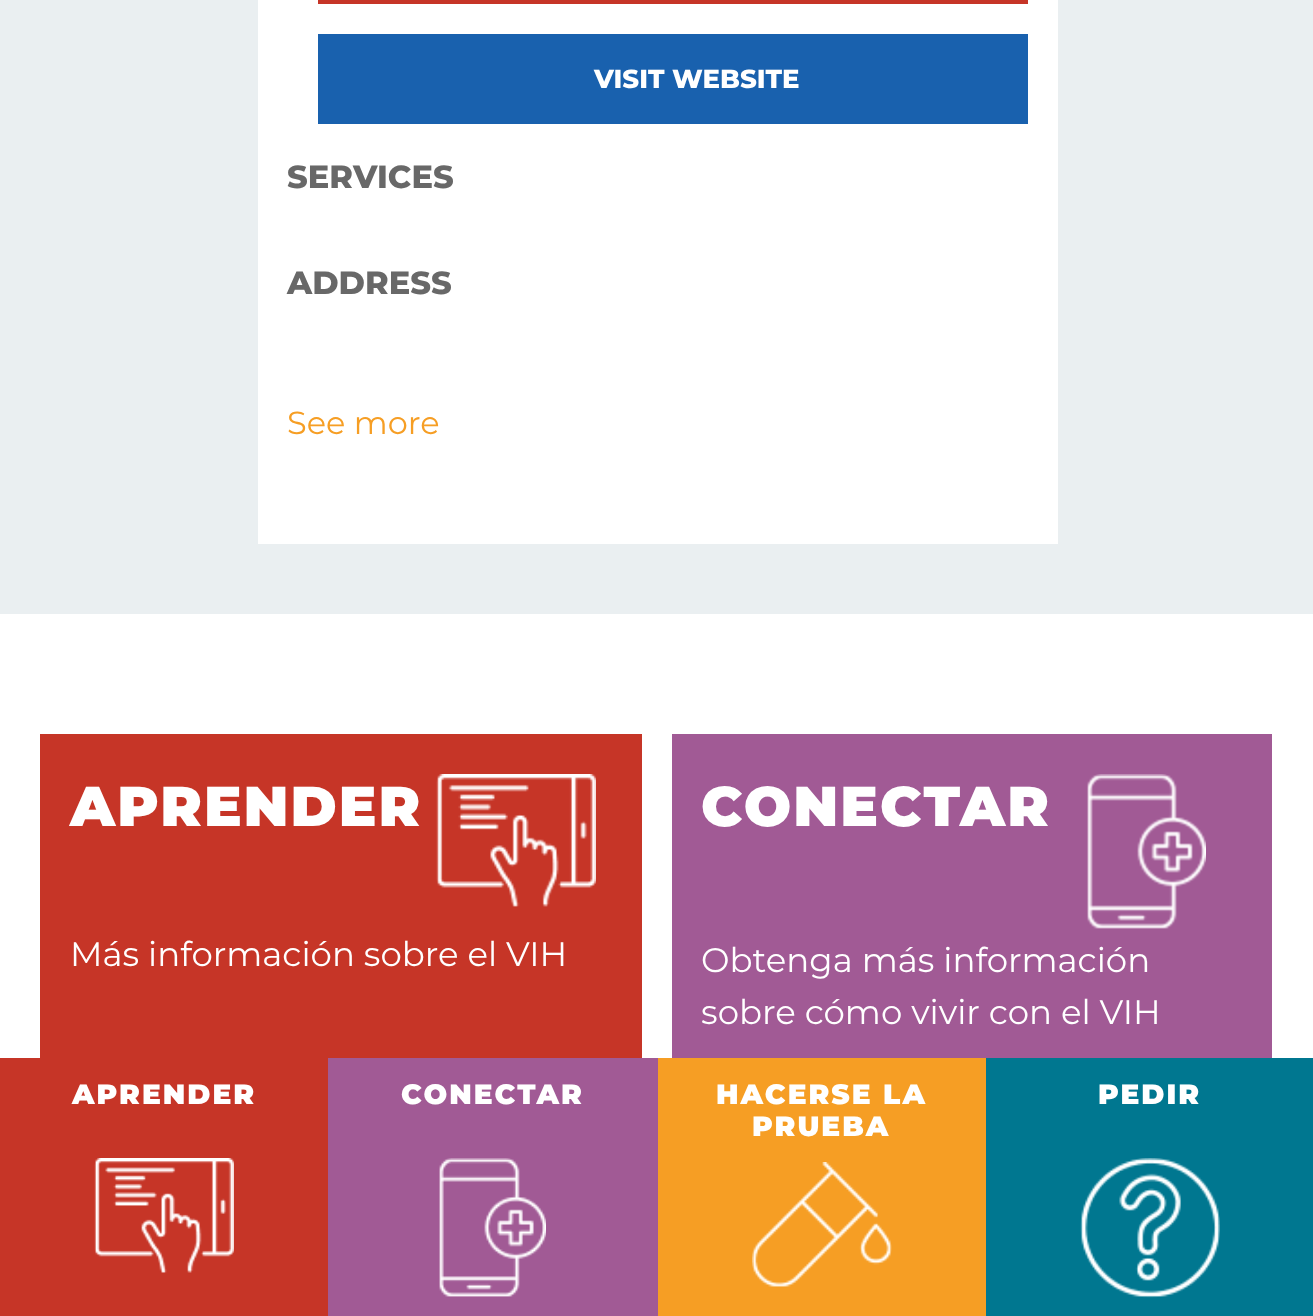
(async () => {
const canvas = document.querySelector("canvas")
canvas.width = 1313
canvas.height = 1316
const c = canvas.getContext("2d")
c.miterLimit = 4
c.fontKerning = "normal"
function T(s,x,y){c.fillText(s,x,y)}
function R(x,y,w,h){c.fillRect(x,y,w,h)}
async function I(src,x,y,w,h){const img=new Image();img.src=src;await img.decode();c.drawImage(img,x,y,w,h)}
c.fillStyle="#fff"
R(0,0,1313,1316)
c.fillStyle="#eaeff1"
R(0,0,1313,614)
c.fillStyle="#fff"
R(258,0,800,544)
c.fillStyle="#c63527"
R(318,0,710,4)
c.fillStyle="#1961ae"
R(318,34,710,90)
c.font="800 26px Montserrat"
c.fillStyle="#fff"
T("VISIT WEBSITE",594,88)
c.font="800 32px Montserrat"
c.fillStyle="#686868"
T("SERVICES",287,188)
T("ADDRESS",287,294)
c.font="32px Montserrat"
c.fillStyle="#f69e24"
T("See more",287,434)
c.fillStyle="#c63527"
R(40,734,602,324)
c.letterSpacing="2px"
c.font="900 56px Montserrat"
c.fillStyle="#fff"
T("APRENDER",70,826)
await I("1.png",436,774,160,133)
c.letterSpacing="0px"
c.font="34px Montserrat"
T("Más información sobre el VIH",70,966)
c.fillStyle="#a15a95"
R(672,734,600,324)
c.letterSpacing="2px"
c.font="900 56px Montserrat"
c.fillStyle="#fff"
T("CONECTAR",701,826)
await I("2.png",1087,774,119,155)
c.letterSpacing="0px"
c.font="34px Montserrat"
T("Obtenga más información",701,972)
T("sobre cómo vivir con el VIH",701,1024)
c.fillStyle="#c63527"
R(0,1058,328,258)
c.letterSpacing="2px"
c.font="900 28px Montserrat"
c.fillStyle="#fff"
T("APRENDER",72,1104)
await I("3.png",94,1158,140,115)
c.fillStyle="#a15a95"
R(328,1058,330,258)
c.fillStyle="#fff"
T("CONECTAR",401,1104)
await I("4.png",439,1158,107,139)
c.fillStyle="#f69e24"
R(658,1058,328,258)
c.fillStyle="#fff"
T("HACERSE LA",716,1104)
T("PRUEBA",752,1136)
await I("5.png",752,1162,140,125)
c.fillStyle="#007790"
R(986,1058,327,258)
c.fillStyle="#fff"
T("PEDIR",1098,1104)
await I("6.png",1080,1158,140,140)
})()
